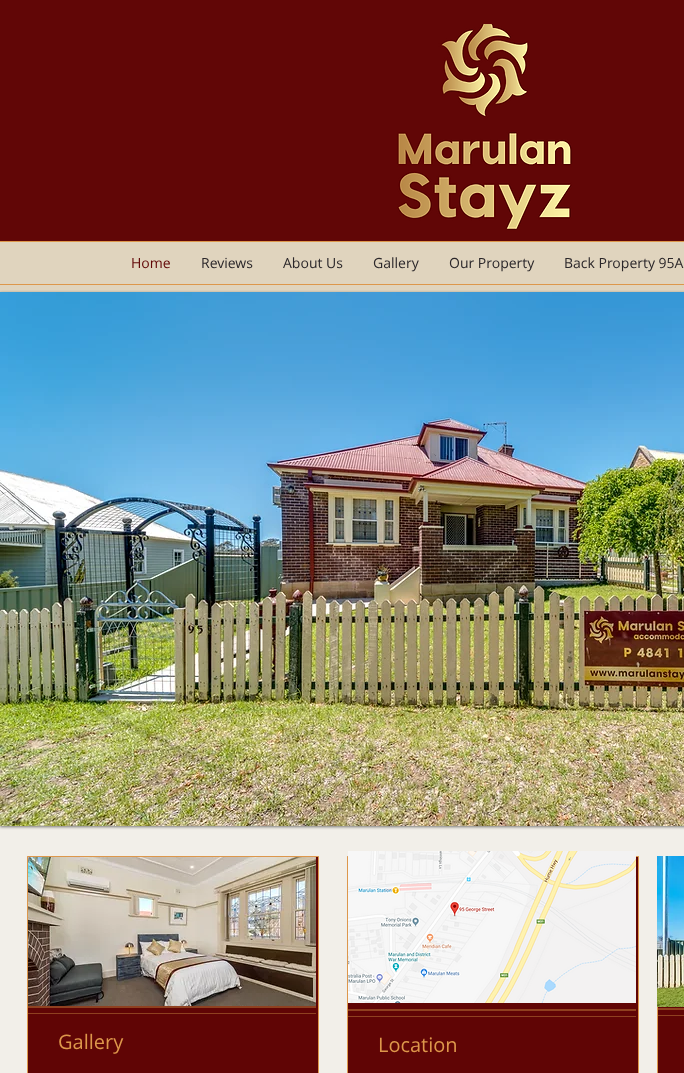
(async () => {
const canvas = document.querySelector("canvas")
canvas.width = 684
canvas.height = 1073
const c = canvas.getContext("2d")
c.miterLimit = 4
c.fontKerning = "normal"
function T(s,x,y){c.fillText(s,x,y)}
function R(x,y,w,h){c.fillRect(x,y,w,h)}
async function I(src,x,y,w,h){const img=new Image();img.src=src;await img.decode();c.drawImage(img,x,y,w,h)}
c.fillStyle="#610606"
R(0,0,684,1073)
await I("1.png",397,24,175,206)
c.fillStyle="#e0d4be"
R(0,242,684,50)
c.fillStyle="#dd974b"
R(0,241,684,1)
R(0,284,684,1)
c.font="14px Open Sans"
c.fillStyle="#600505"
T("Home",131,268)
c.fillStyle="#2b272a"
T("Reviews",201,268)
T("About Us",283,268)
T("Gallery",373,268)
T("Our Property",449,268)
T("Back Property 95A",564,268)
c.fillStyle="#f2efe9"
R(0,826,684,247)
c.fillStyle="#00000080"
c.filter="blur(1.5px)"
c.beginPath()
c.rect(0,293,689,534)
c.fill()
c.filter="none"
await I("2.png",0,292,684,534)
c.fillStyle="#600505"
c.beginPath()
c.rect(27.5,856.5,291,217)
c.fill()
c.strokeStyle="#dd974b"
c.stroke()
await I("3.png",28,857,288,149)
c.fillStyle="#8f4120"
R(28,1006,288,2)
R(28,1013,288,1)
c.font="20px Open Sans"
c.fillStyle="#dd974b"
T("Gallery",58,1049)
c.fillStyle="#600505"
c.beginPath()
c.rect(347.5,856.5,291,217)
c.fill()
c.stroke()
await I("4.png",348,851,288,152)
c.fillStyle="#8f4120"
R(348,1009,288,2)
R(348,1016,288,1)
c.fillStyle="#dd974b"
T("Location",378,1052)
c.fillStyle="#600505"
R(658,1007,26,66)
c.strokeRect(657.5,856.5,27,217)
await I("5.png",657,856,27,151)
c.fillStyle="#8f4120"
R(658,1008,26,2)
R(658,1015,26,1)
})()
